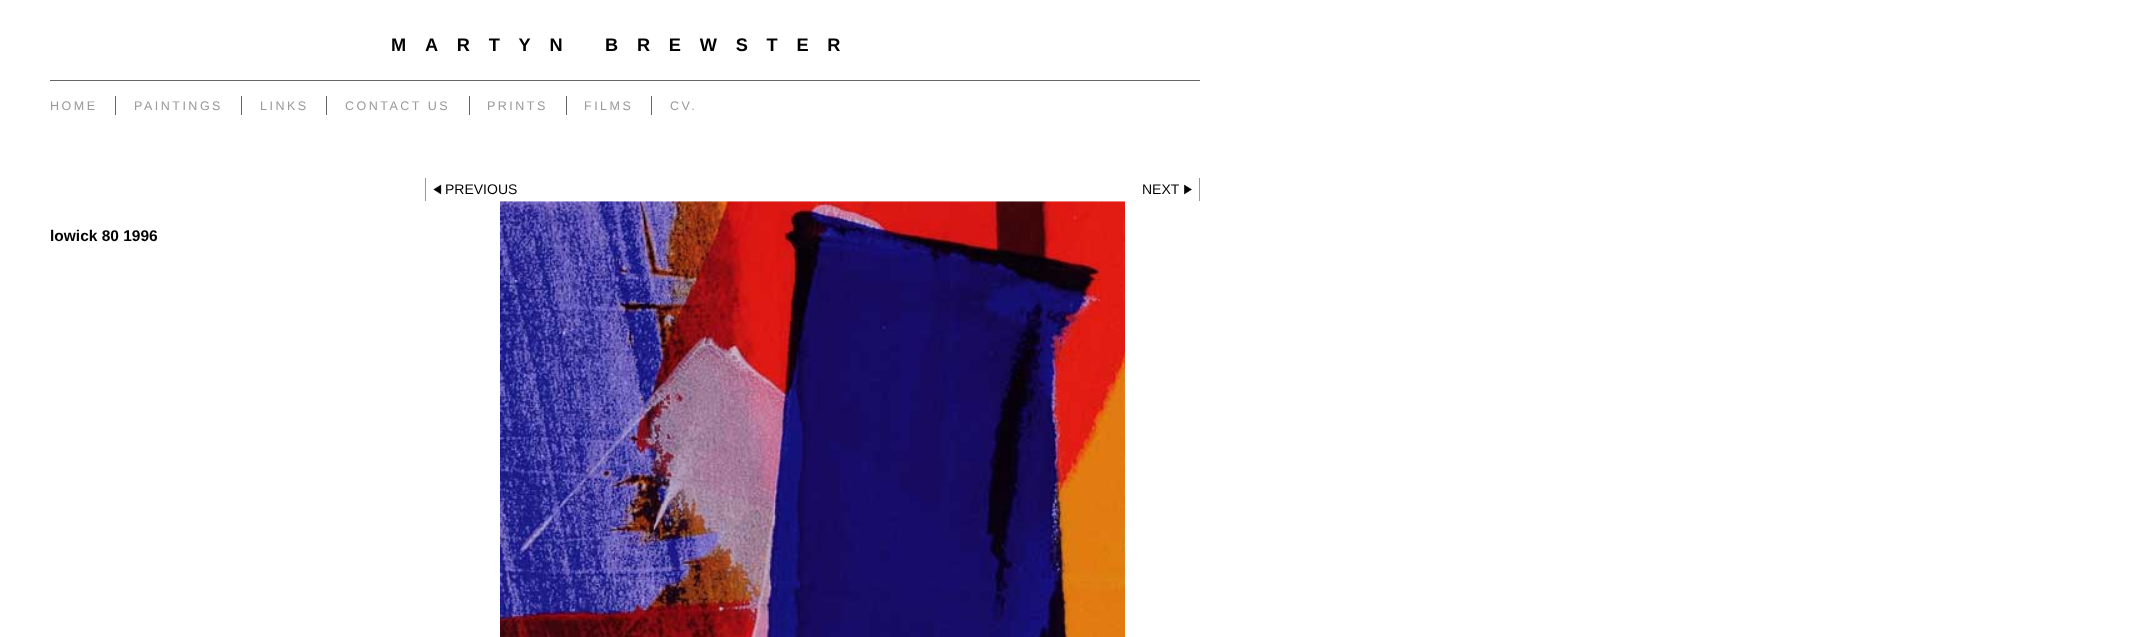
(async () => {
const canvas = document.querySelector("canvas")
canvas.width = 2140
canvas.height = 637
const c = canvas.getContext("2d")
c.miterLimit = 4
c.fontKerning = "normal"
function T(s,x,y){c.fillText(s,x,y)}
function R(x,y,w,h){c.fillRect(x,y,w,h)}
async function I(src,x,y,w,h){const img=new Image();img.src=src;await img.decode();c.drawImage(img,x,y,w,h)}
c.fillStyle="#fff"
R(0,0,2140,637)
c.fillStyle="#666"
R(50,80,1150,1)
c.letterSpacing="18.75px"
c.font="bold 18.2px Liberation Sans"
c.fillStyle="#000"
T("MARTYN BREWSTER",391,51)
c.letterSpacing="2.5px"
c.font="12.5px Liberation Sans"
c.fillStyle="#999"
T("HOME",50,110)
c.fillStyle="#666"
R(115,96,1,19)
c.fillStyle="#999"
T("PAINTINGS",134,110)
c.fillStyle="#666"
R(241,96,1,19)
c.fillStyle="#999"
T("LINKS",260,110)
c.fillStyle="#666"
R(326,96,1,19)
c.fillStyle="#999"
T("CONTACT US",345,110)
c.fillStyle="#666"
R(469,96,1,19)
c.fillStyle="#999"
T("PRINTS",487,110)
c.fillStyle="#666"
R(566,96,1,19)
c.fillStyle="#999"
T("FILMS",584,110)
c.fillStyle="#666"
R(651,96,1,19)
c.fillStyle="#999"
T("CV.",670,110)
R(425,178,1,23)
await I("1.png",433,184,9,11)
c.letterSpacing="0px"
c.font="14px Liberation Sans"
c.fillStyle="#000"
T("PREVIOUS",445,194)
c.fillStyle="#999"
R(1199,178,1,23)
c.fillStyle="#000"
T("NEXT",1142,194)
await I("2.png",1184,184,8,11)
await I("3.png",500,201,625,436)
c.font="bold 15.5px Liberation Sans"
T("lowick 80 1996",50,241)
})()
